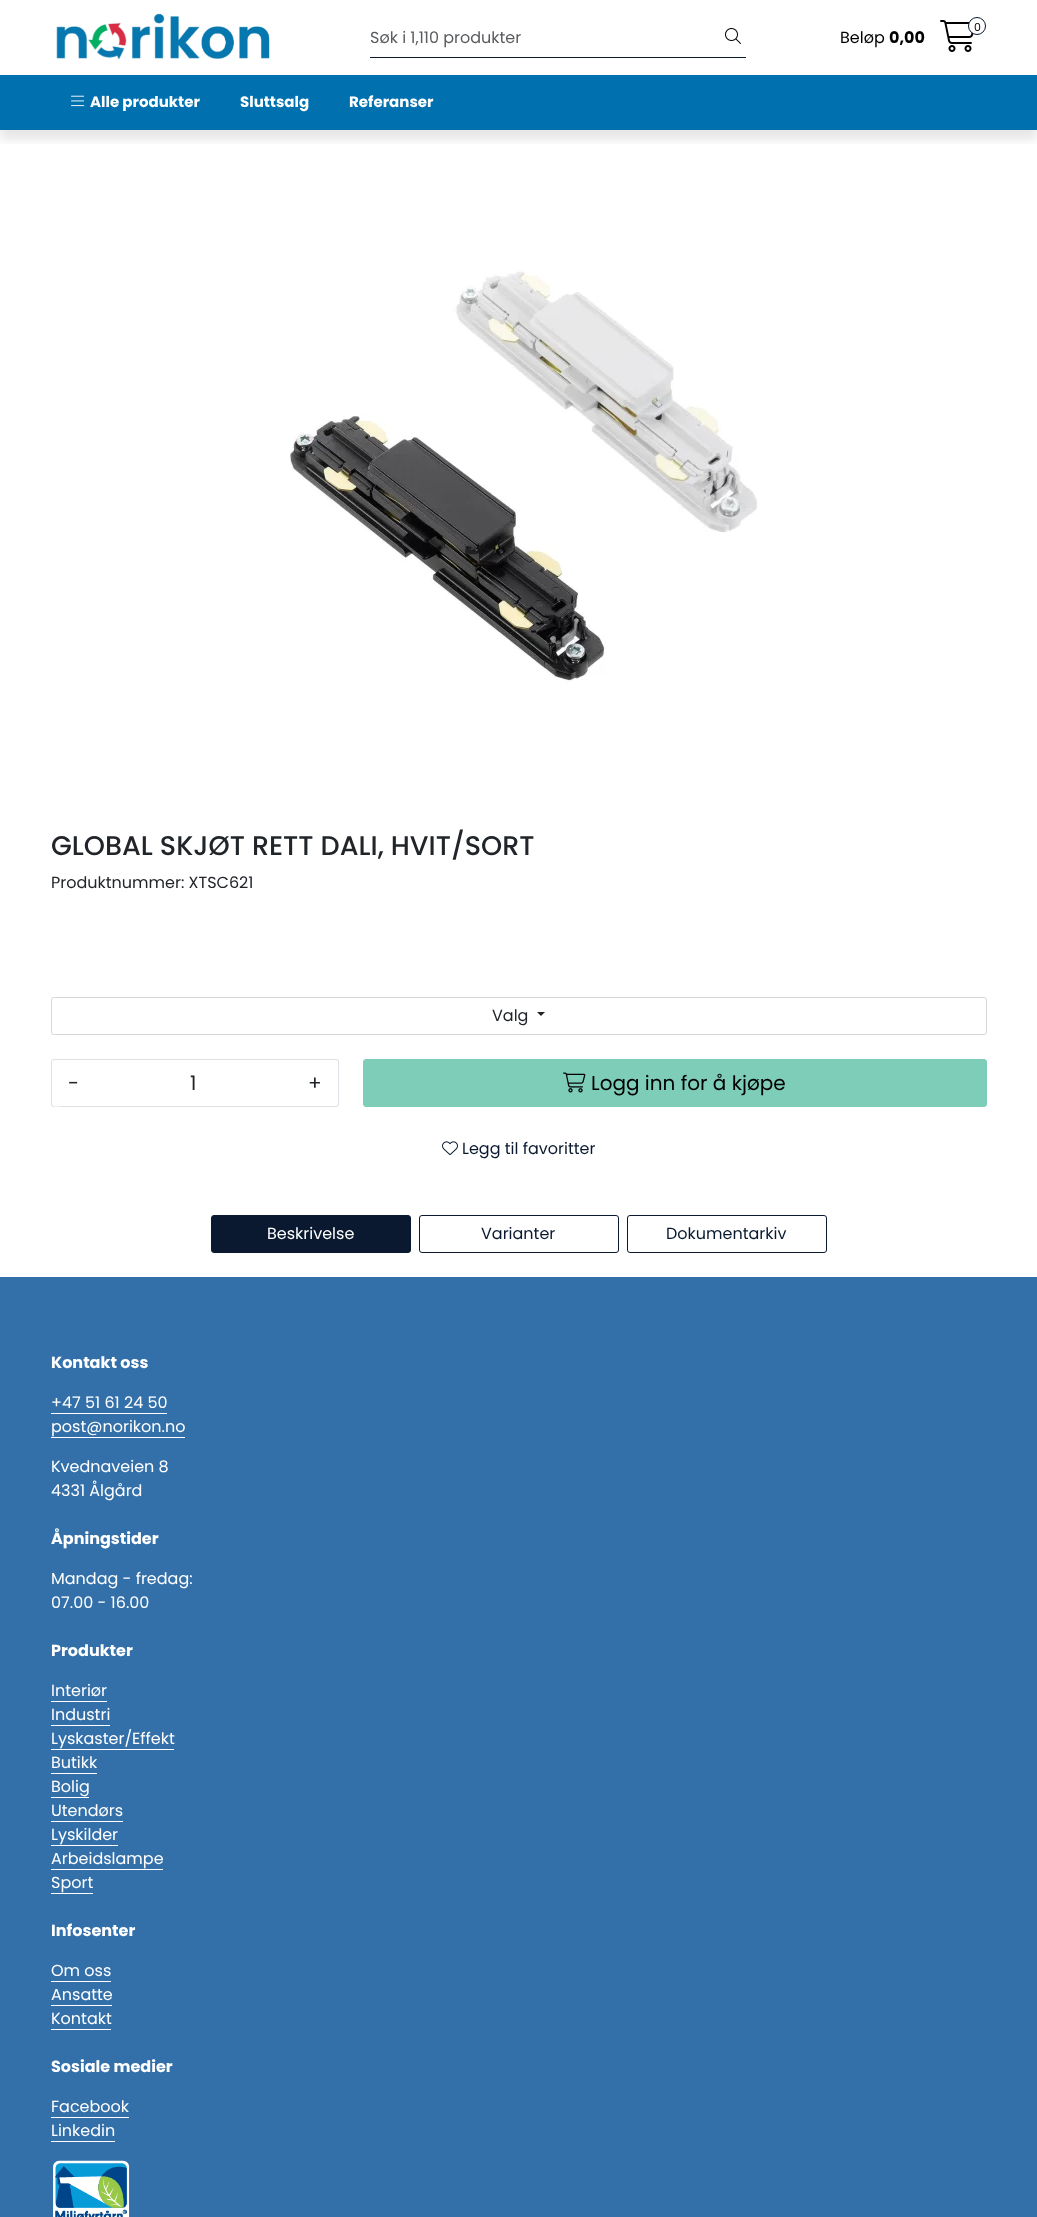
(async () => {
const canvas = document.querySelector("canvas")
canvas.width = 1037
canvas.height = 2217
const c = canvas.getContext("2d")
c.miterLimit = 4
c.fontKerning = "normal"
function T(s,x,y){c.fillText(s,x,y)}
function R(x,y,w,h){c.fillRect(x,y,w,h)}
async function I(src,x,y,w,h){const img=new Image();img.src=src;await img.decode();c.drawImage(img,x,y,w,h)}
let path
c.fillStyle="#fff"
R(0,0,1037,2217)
c.save()
c.beginPath()
c.rect(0,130,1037,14)
c.clip()
c.fillStyle="#1111111a"
c.filter="blur(5px)"
c.beginPath()
c.rect(0,10,1037,130)
c.fill()
c.filter="none"
c.restore()
await I("1.png",56,13,214,47)
c.fillStyle="#0a192f"
R(370,57,376,1)
c.font="16px Poppins"
c.fillStyle="#595c5f"
T("Søk i 1,110 produkter",370,43)
await I("2.png",725,28,16,16)
await I("3.png",940,20,34,32)
c.fillStyle="#fff"
c.beginPath()
c.arc(977,26,8.5,0,7)
c.fill()
c.strokeStyle="#0a192f"
c.stroke()
c.font="11px Poppins"
c.fillStyle="#000"
T("0",974,31)
c.font="16px Poppins"
T("Beløp",840,43)
c.font="bold 16px Poppins"
T("0,00",889,43)
c.fillStyle="#0071ae"
R(0,75,1037,55)
await I("4.png",71,95,14,12)
c.font="bold 15px Poppins"
c.fillStyle="#fff"
T("Alle produkter",90,107)
T("Sluttsalg",240,107)
T("Referanser",349,107)
await I("5.png",290,270,468,414)
c.font="500 27px Poppins"
c.fillStyle="#212529"
T("GLOBAL SKJØT RETT DALI, HVIT/SORT",51,855)
c.font="16px Poppins"
T("Produktnummer: XTSC621",51,888)
c.beginPath()
c.roundRect(51.5,997.5,935,37,2.5)
c.strokeStyle="#d6d8dd"
c.stroke()
T("Valg",492,1021)
path = new Path2D("M537 1012h8l-4 4z")
c.fill(path)
c.fillStyle="#dee2e6"
R(94,1059,199,1)
R(94,1106,199,1)
c.fillStyle="#fff"
c.beginPath()
c.roundRect(51,1059,44,48,[3,0,0,3])
c.fill()
c.fillStyle="#dee2e6"
path = new Path2D("M54 1059h41v48h-41c-2 0-3-1-3-3v-42c0-2 1-3 3-3zm0 1h41v46h-34c0 0-9 2-9-2v-43z")
c.fill(path,"evenodd")
c.font="20px Poppins"
c.fillStyle="#212529"
T("-",68,1090)
T("1",190,1090)
c.fillStyle="#fff"
c.beginPath()
c.roundRect(292,1059,47,48,[0,3,3,0])
c.fill()
c.fillStyle="#dee2e6"
path = new Path2D("M292 1059h44c2 0 3 1 3 3v42c0 2-1 3-3 3h-44zm0 1h44c1 0 2 1 2 2v42c0 1-1 2-2 2h-44z")
c.fill(path,"evenodd")
c.fillStyle="#212529"
T("+",308,1090)
c.fillStyle="#7dcdb8"
c.beginPath()
c.roundRect(363.5,1059.5,623,47,2.5)
c.fill()
c.strokeStyle="#7dcdb8"
c.stroke()
await I("6.png",563,1072,23,21)
c.fillStyle="#000"
T("Logg inn for å kjøpe",591,1090)
await I("7.png",442,1141,16,14)
c.font="16px Poppins"
c.fillStyle="#0a192f"
T("Legg til favoritter",462,1154)
c.beginPath()
c.roundRect(211.5,1215.5,199,37,2.5)
c.fill()
c.strokeStyle="#0a192f"
c.stroke()
c.fillStyle="#fff"
T("Beskrivelse",267,1239)
c.beginPath()
c.roundRect(419.5,1215.5,199,37,2.5)
c.stroke()
c.fillStyle="#0a192f"
T("Varianter",481,1239)
c.beginPath()
c.roundRect(627.5,1215.5,199,37,2.5)
c.stroke()
T("Dokumentarkiv",666,1239)
c.fillStyle="#3370aa"
R(0,1277,1037,940)
c.font="bold 16px Poppins"
c.fillStyle="#fff"
T("Kontakt oss",51,1368)
c.font="16px Poppins"
T("+47 51 61 24 50",51,1408)
R(51,1413,116,1)
T("post@norikon.no",51,1432)
R(51,1437,134,1)
T("Kvednaveien 8",51,1472)
T("4331 Ålgård",51,1496)
c.font="bold 16px Poppins"
T("Åpningstider",51,1544)
c.font="16px Poppins"
T("Mandag - fredag:",51,1584)
T("07.00 - 16.00",51,1608)
c.font="bold 16px Poppins"
T("Produkter",51,1656)
c.font="16px Poppins"
T("Interiør",51,1696)
R(51,1701,56,1)
T("Industri",51,1720)
R(51,1725,59,1)
T("Lyskaster/Effekt",51,1744)
R(51,1749,123,1)
T("Butikk",51,1768)
R(51,1773,46,1)
T("Bolig",51,1792)
R(51,1797,38,1)
T("Utendørs",51,1816)
R(51,1821,72,1)
T("Lyskilder",51,1840)
R(51,1845,67,1)
T("Arbeidslampe",51,1864)
R(51,1869,112,1)
T("Sport",51,1888)
R(51,1893,42,1)
c.font="bold 16px Poppins"
T("Infosenter",51,1936)
c.font="16px Poppins"
T("Om oss",51,1976)
R(51,1981,60,1)
T("Ansatte",51,2000)
R(51,2005,61,1)
T("Kontakt",51,2024)
R(51,2029,60,1)
c.font="bold 16px Poppins"
T("Sosiale medier",51,2072)
c.font="16px Poppins"
T("Facebook",51,2112)
R(51,2117,78,1)
T("Linkedin",51,2136)
R(51,2141,64,1)
await I("8.png",53,2160,77,57)
})()
